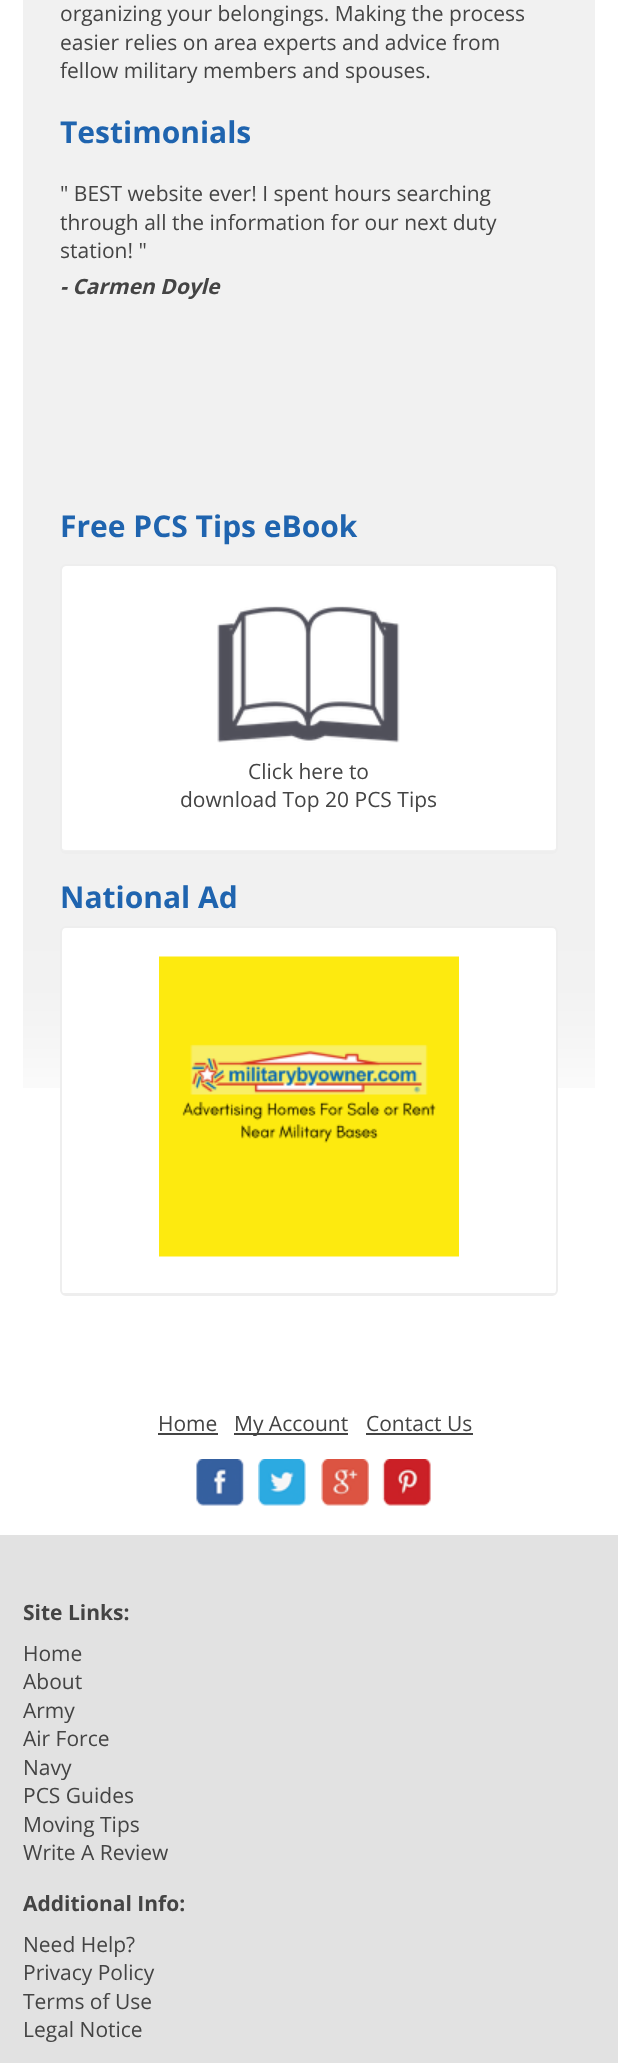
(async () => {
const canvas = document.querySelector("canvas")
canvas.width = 618
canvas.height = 2063
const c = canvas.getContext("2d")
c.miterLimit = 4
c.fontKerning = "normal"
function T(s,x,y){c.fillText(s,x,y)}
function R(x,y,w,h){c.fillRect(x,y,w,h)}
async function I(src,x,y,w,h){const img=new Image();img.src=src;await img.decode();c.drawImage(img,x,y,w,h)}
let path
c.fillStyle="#fff"
R(0,0,618,2063)
await I("1.png",23,0,572,1088)
c.font="21px Open Sans"
c.fillStyle="#444"
T("organizing your belongings. Making the process",60,21)
T("easier relies on area experts and advice from",60,50)
T("fellow military members and spouses.",60,78)
c.font="bold 30px Open Sans"
c.fillStyle="#1f64af"
T("Testimonials",60,143)
c.font="21px Open Sans"
c.fillStyle="#444"
T("\" BEST website ever! I spent hours searching",60,201)
T("through all the information for our next duty",60,230)
T("station! \"",60,258)
c.font="italic bold 21px Open Sans"
T("- Carmen Doyle",60,294)
c.font="bold 30px Open Sans"
c.fillStyle="#1f64af"
T("Free PCS Tips eBook",60,537)
c.fillStyle="#fff"
path = new Path2D("M66 566h486c2 0 4 2 4 4v278c0 1-2 2-4 2h-486c-2 0-4-1-4-2v-278c0-2 2-4 4-4z")
c.fill(path)
c.beginPath()
c.roundRect(61,565,496,288,5)
c.strokeStyle="#eee"
c.lineWidth=2
c.stroke()
c.fillStyle="#eee"
R(63,851,492,1)
await I("2.png",217,606,183,137)
c.font="21px Open Sans"
c.fillStyle="#444"
T("Click here to",248,779)
T("download Top 20 PCS Tips",180,807)
c.font="bold 30px Open Sans"
c.fillStyle="#1f64af"
T("National Ad",60,908)
c.fillStyle="#fff"
path = new Path2D("M66 927h486c2 0 4 2 4 5v358c0 2-2 3-4 3h-486c-2 0-4-1-4-3v-358c0-3 2-5 4-5z")
c.fill(path)
c.beginPath()
c.roundRect(61,927,496,368,5)
c.stroke()
c.fillStyle="#eee"
R(63,1293,492,1)
await I("3.png",159,956,300,301)
c.font="21px Open Sans"
c.fillStyle="#444"
T("Home",158,1431)
R(158,1433,60,2)
R(234,1433,114,2)
T("My Account",234,1431)
T("Contact Us",366,1431)
R(366,1433,107,2)
await I("4.png",196,1459,49,47)
await I("5.png",258,1459,48,47)
await I("6.png",321,1459,48,47)
await I("7.png",382,1459,49,47)
c.fillStyle="#e2e2e2"
R(0,1535,618,528)
c.font="bold 21px Open Sans"
c.fillStyle="#444"
T("Site Links:",23,1620)
c.font="21px Open Sans"
T("Home",23,1661)
T("About",23,1689)
T("Army",23,1718)
T("Air Force",23,1746)
T("Navy",23,1775)
T("PCS Guides",23,1803)
T("Moving Tips",23,1832)
T("Write A Review",23,1860)
c.font="bold 21px Open Sans"
T("Additional Info:",23,1911)
c.font="21px Open Sans"
T("Need Help?",23,1952)
T("Privacy Policy",23,1980)
T("Terms of Use",23,2009)
T("Legal Notice",23,2037)
})()
